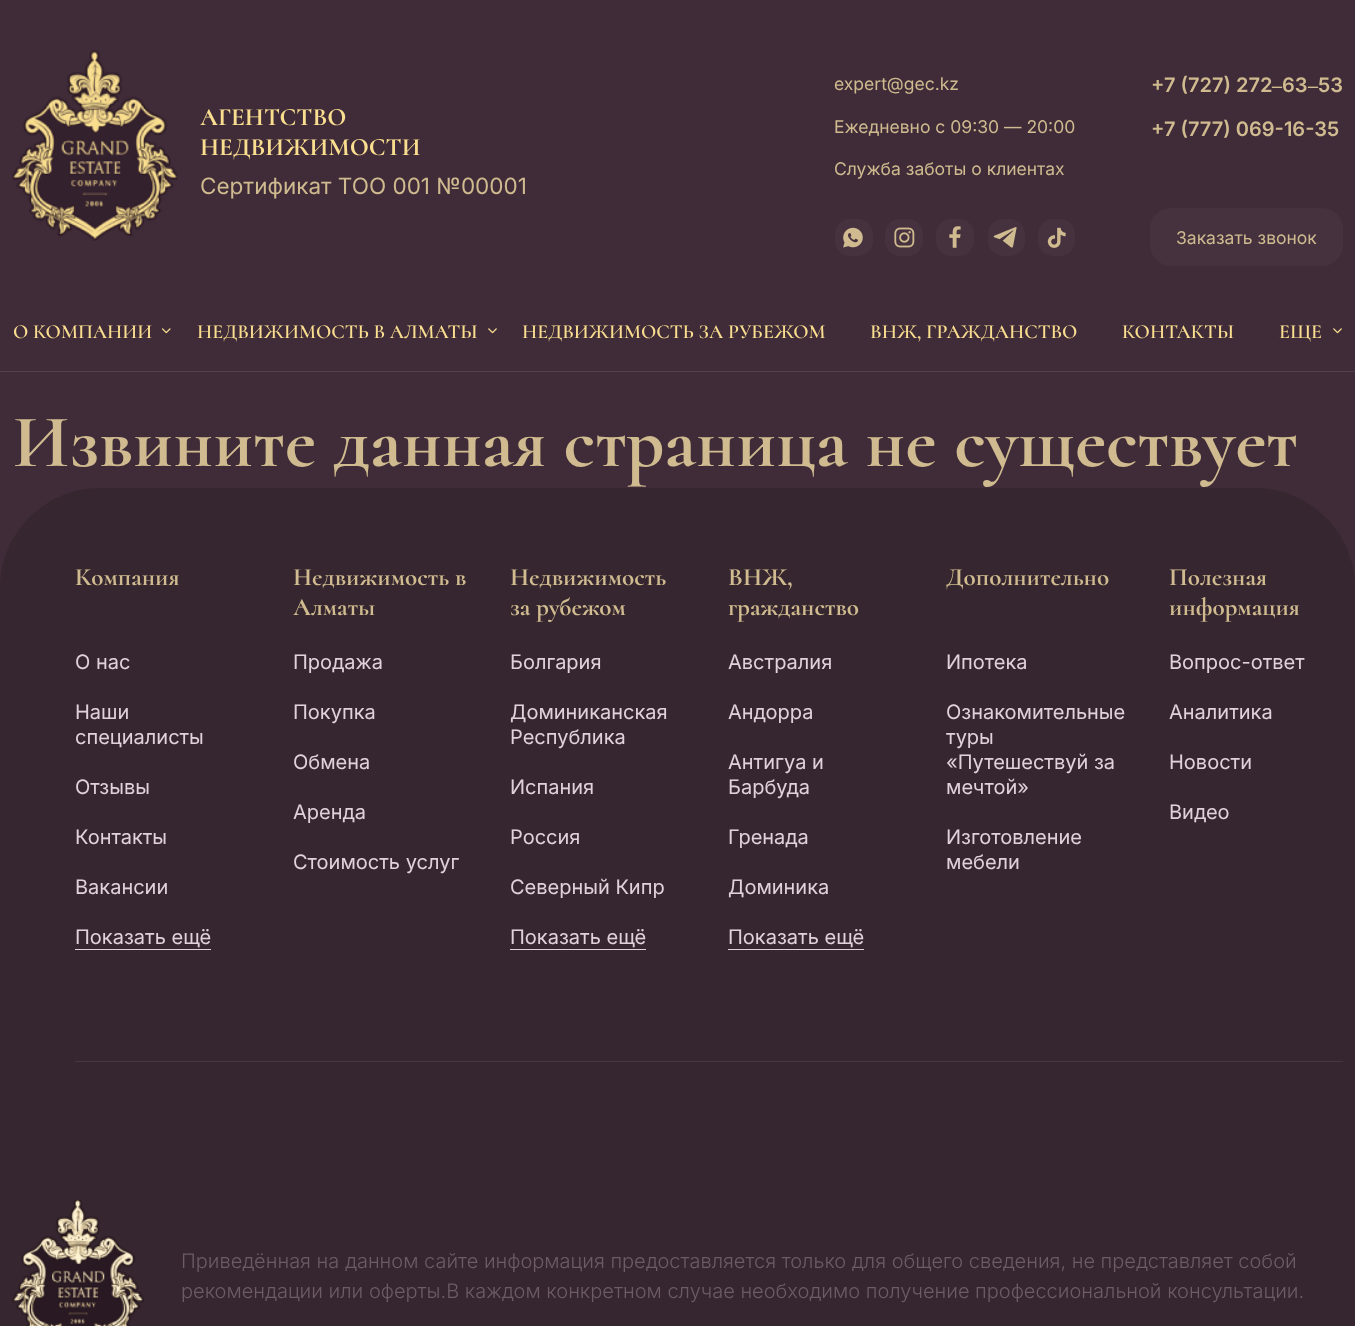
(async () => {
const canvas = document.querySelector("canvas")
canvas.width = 1355
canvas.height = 1326
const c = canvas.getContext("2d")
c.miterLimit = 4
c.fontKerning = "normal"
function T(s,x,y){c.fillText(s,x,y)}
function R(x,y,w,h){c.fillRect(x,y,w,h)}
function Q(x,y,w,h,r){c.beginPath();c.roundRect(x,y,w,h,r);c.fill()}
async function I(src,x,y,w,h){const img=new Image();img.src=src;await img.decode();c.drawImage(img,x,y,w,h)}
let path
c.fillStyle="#402c39"
R(0,0,1355,1326)
await I("1.png",12,50,166,191)
c.font="bold 25px Cormorant"
c.fillStyle="#fade8f"
T("АГЕНТСТВО",200,125)
T("НЕДВИЖИМОСТИ",200,155)
c.font="22.5px Inter"
c.fillStyle="#cfbb8f"
T("Сертификат ТОО 001 №00001",200,194)
c.font="17.5px Inter"
T("expert@gec.kz",834,90)
T("Ежедневно с 09:30 — 20:00",834,133)
T("Служба заботы о клиентах",834,175)
c.fillStyle="#46323f"
Q(835,219,38,37,15)
await I("2.png",843,227,20,21)
Q(885,219,38,37,15)
await I("3.png",894,227,21,21)
Q(936,219,38,37,15)
await I("4.png",949,226,12,22)
Q(988,219,37,37,15)
await I("5.png",993,227,24,21)
Q(1038,219,37,37,15)
await I("6.png",1047,227,19,21)
c.font="600 20px Inter"
c.fillStyle="#cfbb8f"
T("+7 (727) 272",1151,92)
c.font="bold 20px Liberation Serif"
T("‒",1272,92)
c.font="600 20px Inter"
T("63",1282,92)
c.font="bold 20px Liberation Serif"
T("‒",1308,92)
c.font="600 20px Inter"
T("53",1318,92)
T("+7 (777) 069-16-35",1151,136)
c.fillStyle="#46323f"
Q(1150,208,193,58,21)
c.font="17.5px Inter"
c.fillStyle="#cfbb8f"
T("Заказать звонок",1176,244)
c.fillStyle="#53414d"
R(0,371,1355,1)
c.font="600 20px Cormorant"
c.fillStyle="#fade8f"
T("О КОМПАНИИ",13,338)
await I("7.png",161,328,10,6)
T("НЕДВИЖИМОСТЬ В АЛМАТЫ",197,338)
await I("8.png",488,328,9,6)
T("НЕДВИЖИМОСТЬ ЗА РУБЕЖОМ",522,338)
T("ВНЖ, ГРАЖДАНСТВО",870,338)
T("КОНТАКТЫ",1122,338)
T("ЕЩЕ",1279,338)
await I("8.png",1333,328,9,6)
c.font="bold 75px Cormorant"
c.fillStyle="#cfbb8f"
T("Извините данная страница не существует",13,466)
c.fillStyle="#36262f"
path = new Path2D("M100 488h1155c55 0 100 45 100 100v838h-1355v-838c0-55 45-100 100-100z")
c.fill(path)
c.fillStyle="#463840"
R(75,1061,1268,1)
c.font="bold 25px Cormorant"
c.fillStyle="#cfbb8f"
T("Компания",75,585)
c.font="20px Inter"
c.fillStyle="#e0d2db"
T("О нас",75,669)
T("Наши",75,719)
T("специалисты",75,744)
T("Отзывы",75,794)
T("Контакты",75,844)
T("Вакансии",75,894)
T("Показать ещё",75,944)
R(75,949,136,1)
c.font="bold 25px Cormorant"
c.fillStyle="#cfbb8f"
T("Недвижимость в",293,585)
T("Алматы",293,615)
c.font="20px Inter"
c.fillStyle="#e0d2db"
T("Продажа",293,669)
T("Покупка",293,719)
T("Обмена",293,769)
T("Аренда",293,819)
T("Стоимость услуг",293,869)
c.font="bold 25px Cormorant"
c.fillStyle="#cfbb8f"
T("Недвижимость",510,585)
T("за рубежом",510,615)
c.font="20px Inter"
c.fillStyle="#e0d2db"
T("Болгария",510,669)
T("Доминиканская",510,719)
T("Республика",510,744)
T("Испания",510,794)
T("Россия",510,844)
T("Северный Кипр",510,894)
T("Показать ещё",510,944)
R(510,949,136,1)
c.font="bold 25px Cormorant"
c.fillStyle="#cfbb8f"
T("ВНЖ,",728,585)
T("гражданство",728,615)
c.font="20px Inter"
c.fillStyle="#e0d2db"
T("Австралия",728,669)
T("Андорра",728,719)
T("Антигуа и",728,769)
T("Барбуда",728,794)
T("Гренада",728,844)
T("Доминика",728,894)
T("Показать ещё",728,944)
R(728,949,136,1)
c.font="bold 25px Cormorant"
c.fillStyle="#cfbb8f"
T("Дополнительно",946,585)
c.font="20px Inter"
c.fillStyle="#e0d2db"
T("Ипотека",946,669)
T("Ознакомительные",946,719)
T("туры",946,744)
T("«Путешествуй за",946,769)
T("мечтой»",946,794)
T("Изготовление",946,844)
T("мебели",946,869)
c.font="bold 25px Cormorant"
c.fillStyle="#cfbb8f"
T("Полезная",1169,585)
T("информация",1169,615)
c.font="20px Inter"
c.fillStyle="#e0d2db"
T("Вопрос-ответ",1169,669)
T("Аналитика",1169,719)
T("Новости",1169,769)
T("Видео",1169,819)
await I("9.png",12,1200,132,126)
c.font="300 20px Inter"
c.fillStyle="#6b5c66"
T("Приведённая на данном сайте информация предоставляется только для общего сведения, не представляет собой",181,1268)
T("рекомендации или оферты.В каждом конкретном случае необходимо получение профессиональной консультации.",181,1298)
})()
